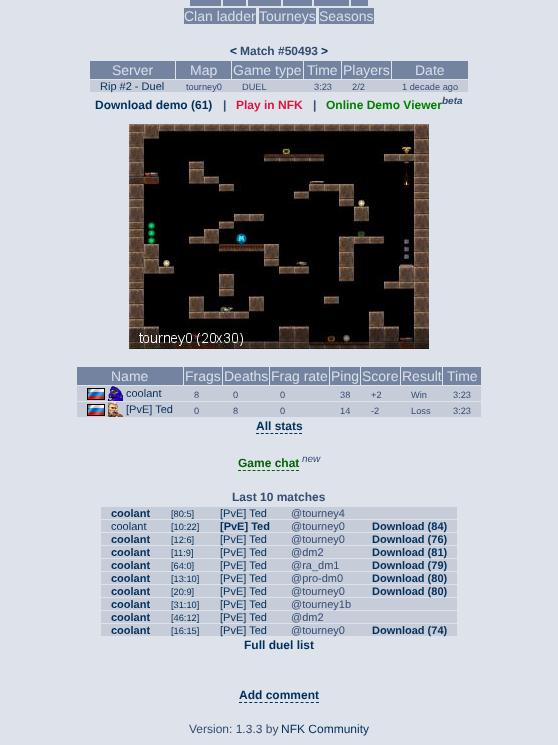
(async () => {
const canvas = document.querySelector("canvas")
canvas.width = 558
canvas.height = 745
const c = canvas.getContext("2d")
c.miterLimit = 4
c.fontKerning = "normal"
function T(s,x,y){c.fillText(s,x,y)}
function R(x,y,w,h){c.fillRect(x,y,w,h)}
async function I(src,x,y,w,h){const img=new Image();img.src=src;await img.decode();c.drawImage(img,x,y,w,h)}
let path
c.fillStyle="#dee3eb"
R(0,0,558,745)
c.fillStyle="#7484a0"
R(190,0,31,6)
R(223,0,23,6)
R(248,0,33,6)
R(283,0,29,6)
R(314,0,35,6)
R(351,0,17,6)
R(184,8,72,16)
c.font="14px Liberation Sans"
c.fillStyle="#d9dfe9"
T("Clan ladder",184,21)
c.fillStyle="#7484a0"
R(259,8,57,16)
c.fillStyle="#d9dfe9"
T("Tourneys",259,21)
c.fillStyle="#7484a0"
R(319,8,55,16)
c.fillStyle="#d9dfe9"
T("Seasons",319,21)
c.font="bold 12px Liberation Sans"
c.fillStyle="#002f5b"
T("<",230,55)
c.fillStyle="#354d73"
T("Match #50493",240,55)
c.fillStyle="#002f5b"
T(">",321,55)
c.fillStyle="#7484a0"
R(90,61,85,18)
c.font="14px Liberation Sans"
c.fillStyle="#d9dfe9"
T("Server",112,75)
c.fillStyle="#7484a0"
R(176,61,55,18)
c.fillStyle="#d9dfe9"
T("Map",190,75)
c.fillStyle="#7484a0"
R(232,61,71,18)
c.fillStyle="#d9dfe9"
T("Game type",233,75)
c.fillStyle="#7484a0"
R(304,61,37,18)
c.fillStyle="#d9dfe9"
T("Time",307,75)
c.fillStyle="#7484a0"
R(342,61,49,18)
c.fillStyle="#d9dfe9"
T("Players",343,75)
c.fillStyle="#7484a0"
R(392,61,76,18)
c.fillStyle="#d9dfe9"
T("Date",415,75)
c.fillStyle="#c7ccd9"
R(90,80,378,12)
c.font="11px Liberation Sans"
c.fillStyle="#002f5b"
T("Rip #2 - Duel",100,90)
c.font="9.25px Liberation Sans"
c.fillStyle="#354d73"
T("tourney0",186,90)
T("DUEL",242,90)
T("3:23",314,90)
T("2/2",352,90)
T("1 decade ago",402,90)
c.font="bold 12px Liberation Sans"
c.fillStyle="#002f5b"
T("Download demo (61)",95,109)
c.fillStyle="#354d73"
T("|",223,109)
c.fillStyle="#dc143c"
T("Play in NFK",236,109)
c.fillStyle="#354d73"
T("|",313,109)
c.fillStyle="#008000"
T("Online Demo Viewer",326,109)
c.font="italic bold 10px Liberation Sans"
c.fillStyle="#354d73"
T("beta",442,104)
await I("1.png",129,124,300,225)
c.fillStyle="#7484a0"
R(77,367,106,18)
c.font="14px Liberation Sans"
c.fillStyle="#d9dfe9"
T("Name",111,381)
c.fillStyle="#7484a0"
R(184,367,38,18)
c.fillStyle="#d9dfe9"
T("Frags",185,381)
c.fillStyle="#7484a0"
R(223,367,46,18)
c.fillStyle="#d9dfe9"
T("Deaths",224,381)
c.fillStyle="#7484a0"
R(270,367,59,18)
c.fillStyle="#d9dfe9"
T("Frag rate",271,381)
c.fillStyle="#7484a0"
R(330,367,30,18)
c.fillStyle="#d9dfe9"
T("Ping",331,381)
c.fillStyle="#7484a0"
R(361,367,39,18)
c.fillStyle="#d9dfe9"
T("Score",362,381)
c.fillStyle="#7484a0"
R(401,367,41,18)
c.fillStyle="#d9dfe9"
T("Result",402,381)
c.fillStyle="#7484a0"
R(443,367,38,18)
c.fillStyle="#d9dfe9"
T("Time",447,381)
c.fillStyle="#c7ccd9"
R(77,386,404,15)
await I("2.png",87,388,18,12)
await I("3.png",108,386,15,15)
c.font="11px Liberation Sans"
c.fillStyle="#002f5b"
T("coolant",126,397)
c.font="9.25px Liberation Sans"
c.fillStyle="#354d73"
T("8",194,398)
T("0",233,398)
T("0",280,398)
T("38",340,398)
T("+2",371,398)
T("Win",411,398)
T("3:23",453,398)
c.fillStyle="#c7ccd9"
R(77,402,404,15)
await I("2.png",87,404,18,12)
await I("4.png",108,402,15,15)
c.font="11px Liberation Sans"
c.fillStyle="#002f5b"
T("[PvE] Ted",126,413)
c.font="9.25px Liberation Sans"
c.fillStyle="#354d73"
T("0",194,414)
T("8",233,414)
T("0",280,414)
T("14",340,414)
T("-2",371,414)
T("Loss",411,414)
T("3:23",453,414)
c.font="bold 12px Liberation Sans"
c.fillStyle="#002f5b"
T("All stats",256,430)
path = new Path2D("M256 433.5h46")
c.strokeStyle="#002f5b"
c.setLineDash([3,1.78])
c.stroke(path)
c.fillStyle="#006400"
T("Game chat",238,467)
path = new Path2D("M238 470.5h61")
c.strokeStyle="#006400"
c.setLineDash([3,1.83])
c.stroke(path)
c.font="italic 10px Liberation Sans"
c.fillStyle="#354d73"
T("new",302,462)
c.font="bold 12px Liberation Sans"
T("Last 10 matches",232,501)
c.fillStyle="#c7ccd9"
R(101,507,356,12)
c.font="bold 11px Liberation Sans"
c.fillStyle="#002f5b"
T("coolant",111,517)
c.font="9.25px Liberation Sans"
T("[80:5]",171,517)
c.font="11px Liberation Sans"
T("[PvE] Ted",220,517)
c.fillStyle="#354d73"
T("@tourney4",291,517)
c.fillStyle="#c7ccd9"
R(101,520,356,12)
c.fillStyle="#002f5b"
T("coolant",111,530)
c.font="9.25px Liberation Sans"
T("[10:22]",171,530)
c.font="bold 11px Liberation Sans"
T("[PvE] Ted",220,530)
c.font="11px Liberation Sans"
c.fillStyle="#354d73"
T("@tourney0",291,530)
c.font="bold 11px Liberation Sans"
c.fillStyle="#002f5b"
T("Download (84)",372,530)
c.fillStyle="#c7ccd9"
R(101,533,356,12)
c.fillStyle="#002f5b"
T("coolant",111,543)
c.font="9.25px Liberation Sans"
T("[12:6]",171,543)
c.font="11px Liberation Sans"
T("[PvE] Ted",220,543)
c.fillStyle="#354d73"
T("@tourney0",291,543)
c.font="bold 11px Liberation Sans"
c.fillStyle="#002f5b"
T("Download (76)",372,543)
c.fillStyle="#c7ccd9"
R(101,546,356,12)
c.fillStyle="#002f5b"
T("coolant",111,556)
c.font="9.25px Liberation Sans"
T("[11:9]",171,556)
c.font="11px Liberation Sans"
T("[PvE] Ted",220,556)
c.fillStyle="#354d73"
T("@dm2",291,556)
c.font="bold 11px Liberation Sans"
c.fillStyle="#002f5b"
T("Download (81)",372,556)
c.fillStyle="#c7ccd9"
R(101,559,356,12)
c.fillStyle="#002f5b"
T("coolant",111,569)
c.font="9.25px Liberation Sans"
T("[64:0]",171,569)
c.font="11px Liberation Sans"
T("[PvE] Ted",220,569)
c.fillStyle="#354d73"
T("@ra_dm1",291,569)
c.font="bold 11px Liberation Sans"
c.fillStyle="#002f5b"
T("Download (79)",372,569)
c.fillStyle="#c7ccd9"
R(101,572,356,12)
c.fillStyle="#002f5b"
T("coolant",111,582)
c.font="9.25px Liberation Sans"
T("[13:10]",171,582)
c.font="11px Liberation Sans"
T("[PvE] Ted",220,582)
c.fillStyle="#354d73"
T("@pro-dm0",291,582)
c.font="bold 11px Liberation Sans"
c.fillStyle="#002f5b"
T("Download (80)",372,582)
c.fillStyle="#c7ccd9"
R(101,585,356,12)
c.fillStyle="#002f5b"
T("coolant",111,595)
c.font="9.25px Liberation Sans"
T("[20:9]",171,595)
c.font="11px Liberation Sans"
T("[PvE] Ted",220,595)
c.fillStyle="#354d73"
T("@tourney0",291,595)
c.font="bold 11px Liberation Sans"
c.fillStyle="#002f5b"
T("Download (80)",372,595)
c.fillStyle="#c7ccd9"
R(101,598,356,12)
c.fillStyle="#002f5b"
T("coolant",111,608)
c.font="9.25px Liberation Sans"
T("[31:10]",171,608)
c.font="11px Liberation Sans"
T("[PvE] Ted",220,608)
c.fillStyle="#354d73"
T("@tourney1b",291,608)
c.fillStyle="#c7ccd9"
R(101,611,356,12)
c.font="bold 11px Liberation Sans"
c.fillStyle="#002f5b"
T("coolant",111,621)
c.font="9.25px Liberation Sans"
T("[46:12]",171,621)
c.font="11px Liberation Sans"
T("[PvE] Ted",220,621)
c.fillStyle="#354d73"
T("@dm2",291,621)
c.fillStyle="#c7ccd9"
R(101,624,356,12)
c.font="bold 11px Liberation Sans"
c.fillStyle="#002f5b"
T("coolant",111,634)
c.font="9.25px Liberation Sans"
T("[16:15]",171,634)
c.font="11px Liberation Sans"
T("[PvE] Ted",220,634)
c.fillStyle="#354d73"
T("@tourney0",291,634)
c.font="bold 11px Liberation Sans"
c.fillStyle="#002f5b"
T("Download (74)",372,634)
c.font="bold 12px Liberation Sans"
T("Full duel list",244,649)
T("Add comment",239,699)
path = new Path2D("M239 702.5h80")
c.strokeStyle="#002f5b"
c.setLineDash([3,2.13])
c.stroke(path)
c.font="12px Liberation Sans"
c.fillStyle="#354d73"
T("Version: 1.3.3 by",189,733)
c.fillStyle="#002f5b"
T("NFK Community",281,733)
})()
